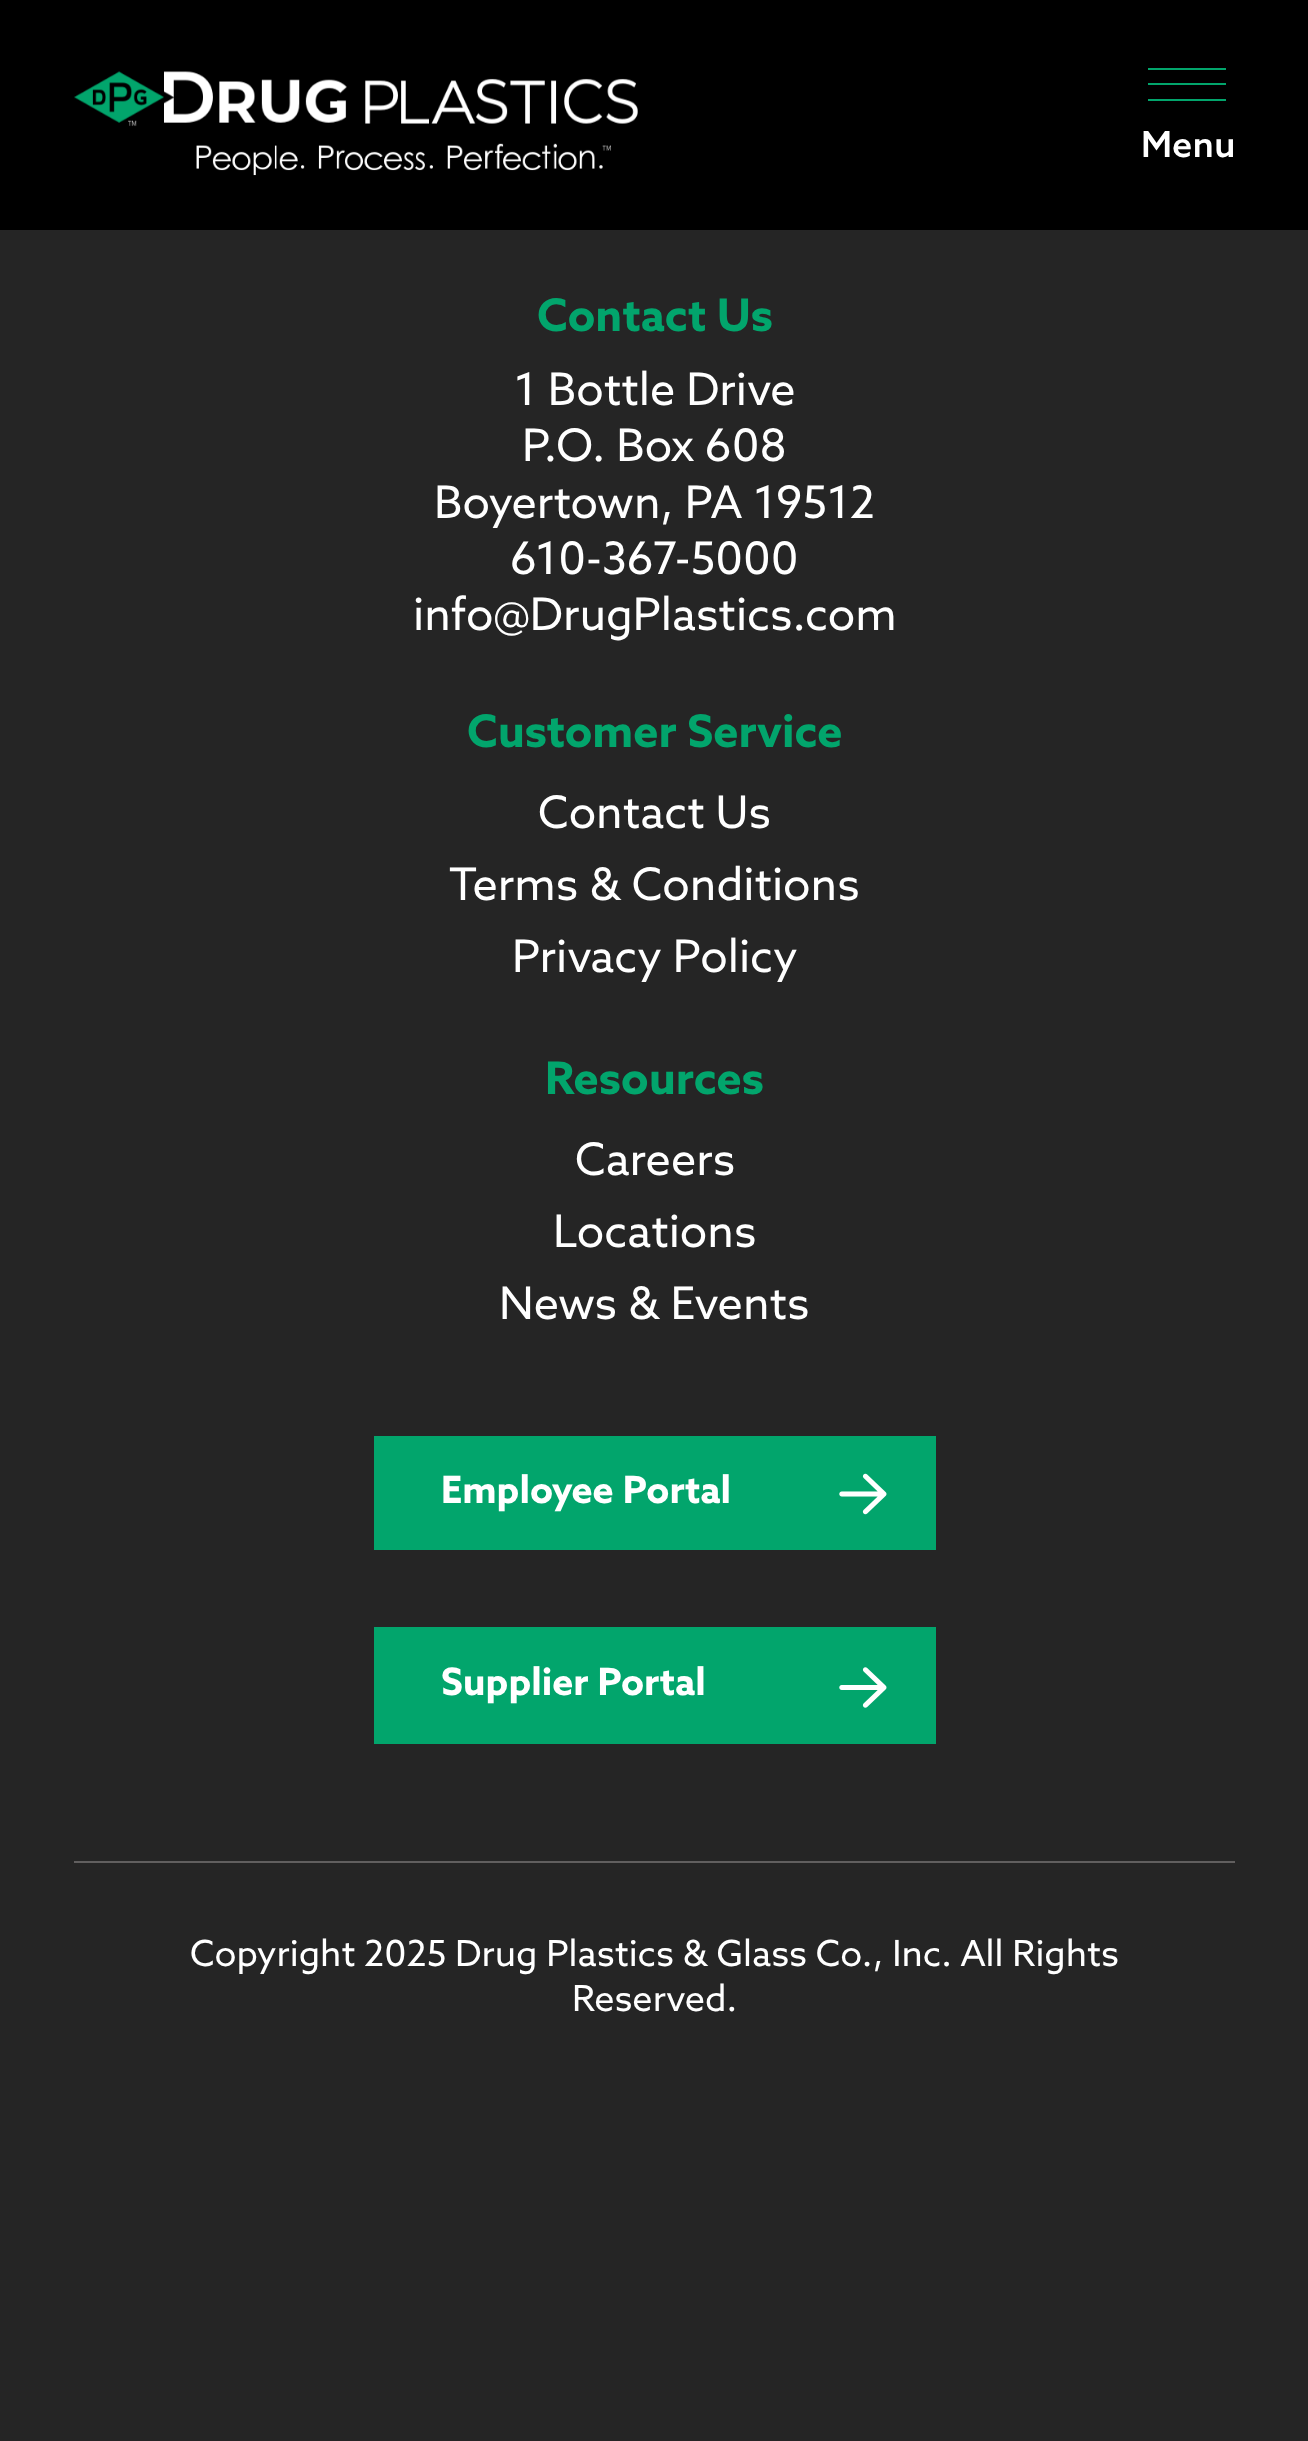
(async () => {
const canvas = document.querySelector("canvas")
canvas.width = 1308
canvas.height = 2441
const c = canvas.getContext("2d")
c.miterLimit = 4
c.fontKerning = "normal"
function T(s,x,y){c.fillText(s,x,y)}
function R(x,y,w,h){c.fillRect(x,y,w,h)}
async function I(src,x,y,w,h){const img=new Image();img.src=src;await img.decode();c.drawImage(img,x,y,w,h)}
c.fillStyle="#252525"
R(0,0,1308,2441)
c.fillStyle="#000"
R(0,0,1308,230)
await I("1.png",74,71,564,105)
c.fillStyle="#02a56c"
R(1148,68,78,2)
R(1148,83,78,2)
R(1148,99,78,2)
c.font="500 36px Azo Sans"
c.fillStyle="#fff"
T("Menu",1141,157)
c.font="bold 45px Azo Sans"
c.fillStyle="#02a56c"
T("Contact Us",537,331)
c.font="45px Azo Sans"
c.fillStyle="#fff"
T("1 Bottle Drive",514,405)
T("P.O. Box 608",522,461)
T("Boyertown, PA 19512",434,518)
T("610-367-5000",510,574)
T("info@DrugPlastics.com",413,630)
c.font="bold 45px Azo Sans"
c.fillStyle="#02a56c"
T("Customer Service",467,747)
c.font="45px Azo Sans"
c.fillStyle="#fff"
T("Contact Us",538,828)
T("Terms & Conditions",449,900)
T("Privacy Policy",512,972)
c.font="bold 45px Azo Sans"
c.fillStyle="#02a56c"
T("Resources",545,1094)
c.font="45px Azo Sans"
c.fillStyle="#fff"
T("Careers",575,1175)
T("Locations",553,1247)
T("News & Events",499,1319)
c.fillStyle="#02a56c"
R(374,1436,562,114)
c.font="bold 37.75px Azo Sans"
c.fillStyle="#fff"
T("Employee Portal",441,1503)
await I("2.png",839,1473,48,42)
c.fillStyle="#02a56c"
R(374,1627,562,117)
c.fillStyle="#fff"
T("Supplier Portal",441,1695)
await I("3.png",839,1667,48,41)
c.fillStyle="#615f5f"
R(74,1861,1161,2)
c.font="36px Azo Sans"
c.fillStyle="#fff"
T("Copyright 2025 Drug Plastics & Glass Co., Inc. All Rights",190,1966)
T("Reserved.",572,2011)
})()
